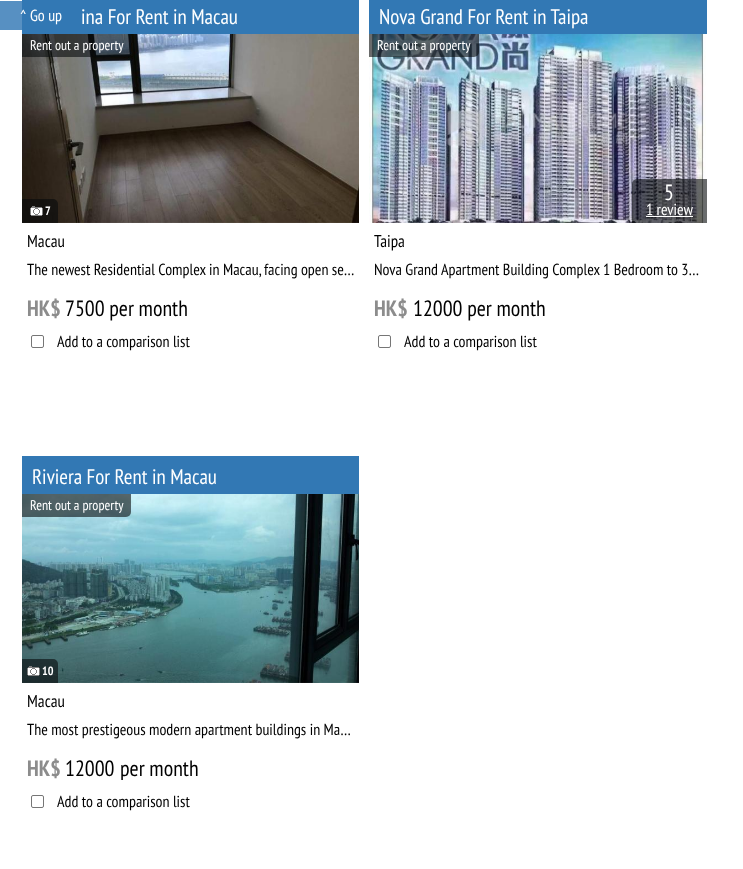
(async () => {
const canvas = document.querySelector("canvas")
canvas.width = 743
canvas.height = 869
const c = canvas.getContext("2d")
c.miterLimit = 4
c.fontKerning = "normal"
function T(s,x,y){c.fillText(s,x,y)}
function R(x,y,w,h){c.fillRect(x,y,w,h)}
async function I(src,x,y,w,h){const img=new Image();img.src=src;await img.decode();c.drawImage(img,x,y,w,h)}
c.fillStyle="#fff"
R(0,0,743,869)
c.fillStyle="#3278b4d1"
R(0,1,22,29)
c.fillStyle="#3278b4"
R(22,0,337,34)
c.font="16px PT Sans Narrow"
c.fillStyle="#fff"
T("^ Go up",20,21)
c.font="21px PT Sans Narrow"
T("ina For Rent in Macau",81,24)
await I("1.png",22,34,337,189)
c.fillStyle="#070a0b99"
c.beginPath()
c.roundRect(22,34,109,23,[0,0,5,0])
c.fill()
c.font="14px PT Sans Narrow"
c.fillStyle="#fff"
T("Rent out a property",30,50)
c.fillStyle="#070a0b99"
c.beginPath()
c.roundRect(22,199,36,24,[0,5,0,0])
c.fill()
await I("2.png",30,206,13,10)
c.font="bold 12px PT Sans Narrow"
c.fillStyle="#fff"
T("7",45,215)
c.font="17px PT Sans Narrow"
c.fillStyle="#000"
T("Macau",27,247)
c.font="16px PT Sans Narrow"
T("The newest Residential Complex in Macau, facing open se…",27,275)
c.font="bold 22px PT Sans Narrow"
c.fillStyle="#8c8c8c"
T("HK$",27,316)
c.font="22px PT Sans Narrow"
c.fillStyle="#000"
T("7500 per month",65,316)
c.beginPath()
c.roundRect(31.5,335.5,12,12,1.5)
c.strokeStyle="#767676"
c.stroke()
c.font="16px PT Sans Narrow"
T("Add to a comparison list",57,347)
c.fillStyle="#3278b4"
R(369,0,338,34)
c.font="21px PT Sans Narrow"
c.fillStyle="#fff"
T("Nova Grand For Rent in Taipa",379,24)
await I("3.png",369,34,337,189)
c.fillStyle="#070a0b99"
c.beginPath()
c.roundRect(369,34,110,23,[0,0,5,0])
c.fill()
c.font="14px PT Sans Narrow"
c.fillStyle="#fff"
T("Rent out a property",377,50)
c.fillStyle="#070a0b99"
c.beginPath()
c.roundRect(632,179,75,44,[5,0,0,0])
c.fill()
c.font="22px PT Sans Narrow"
c.fillStyle="#fff"
T("5",664,200)
c.font="16px PT Sans Narrow"
T("1 review",646,215)
R(646,216,47,1)
c.font="17px PT Sans Narrow"
c.fillStyle="#000"
T("Taipa",374,247)
c.font="16px PT Sans Narrow"
T("Nova Grand Apartment Building Complex 1 Bedroom to 3…",374,275)
c.font="bold 22px PT Sans Narrow"
c.fillStyle="#8c8c8c"
T("HK$",374,316)
c.font="22px PT Sans Narrow"
c.fillStyle="#000"
T("12000 per month",413,316)
c.beginPath()
c.roundRect(378.5,335.5,12,12,1.5)
c.stroke()
c.font="16px PT Sans Narrow"
T("Add to a comparison list",404,347)
c.fillStyle="#3278b4"
R(22,456,337,38)
c.font="21px PT Sans Narrow"
c.fillStyle="#fff"
T("Riviera For Rent in Macau",32,484)
await I("4.png",22,494,337,189)
c.fillStyle="#070a0b99"
c.beginPath()
c.roundRect(22,494,109,23,[0,0,5,0])
c.fill()
c.font="14px PT Sans Narrow"
c.fillStyle="#fff"
T("Rent out a property",30,510)
c.fillStyle="#070a0b99"
c.beginPath()
c.roundRect(22,659,36,24,[0,5,0,0])
c.fill()
await I("5.png",27,666,13,10)
c.font="bold 12px PT Sans Narrow"
c.fillStyle="#fff"
T("10",42,675)
c.font="17px PT Sans Narrow"
c.fillStyle="#000"
T("Macau",27,707)
c.font="16px PT Sans Narrow"
T("The most prestigeous modern apartment buildings in Ma…",27,735)
c.font="bold 22px PT Sans Narrow"
c.fillStyle="#8c8c8c"
T("HK$",27,776)
c.font="22px PT Sans Narrow"
c.fillStyle="#000"
T("12000",65,776)
c.save()
c.beginPath()
c.rect(27,755,327,25)
c.clip()
T("per month",120,776)
c.restore()
c.beginPath()
c.roundRect(31.5,795.5,12,12,1.5)
c.stroke()
c.font="16px PT Sans Narrow"
T("Add to a comparison list",57,807)
})()
